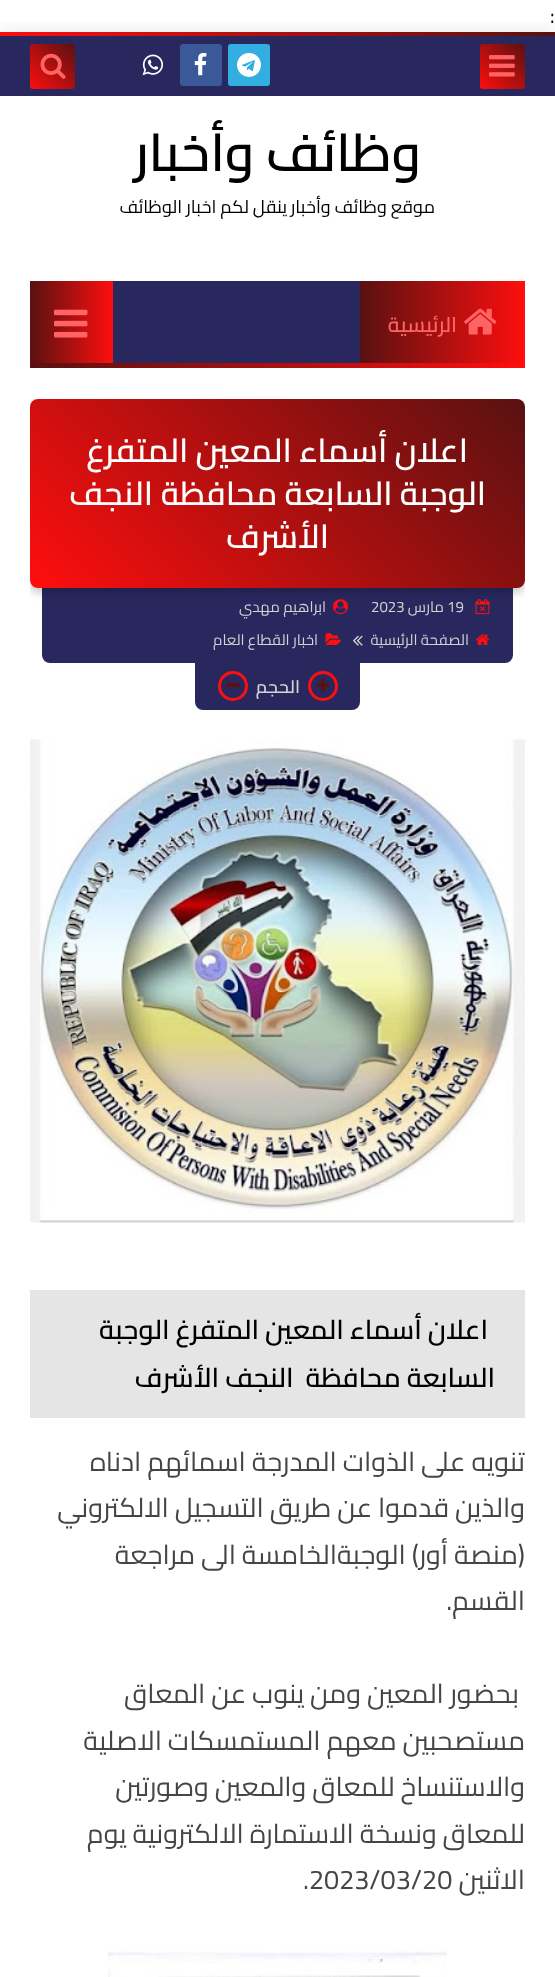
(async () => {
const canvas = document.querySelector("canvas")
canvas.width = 555
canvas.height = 1977
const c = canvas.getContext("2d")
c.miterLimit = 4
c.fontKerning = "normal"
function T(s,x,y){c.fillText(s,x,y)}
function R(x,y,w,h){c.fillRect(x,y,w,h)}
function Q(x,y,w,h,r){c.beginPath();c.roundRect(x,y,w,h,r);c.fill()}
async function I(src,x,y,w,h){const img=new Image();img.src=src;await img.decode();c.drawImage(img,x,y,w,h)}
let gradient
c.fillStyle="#fff"
R(0,0,555,1977)
c.save()
c.beginPath()
c.rect(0,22,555,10)
c.clip()
c.fillStyle="#00000030"
c.filter="blur(15px)"
c.beginPath()
c.rect(0,41,555,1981)
c.fill()
c.filter="none"
c.restore()
c.font="21px Cairo"
c.fillStyle="#000"
T(":",550,23)
gradient = c.createLinearGradient(138,174,417,-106)
gradient.addColorStop(0,"#ff0e0e")
gradient.addColorStop(1,"#591111")
c.fillStyle = gradient
R(0,32,555,4)
c.fillStyle="#28285f"
R(0,36,555,60)
gradient = c.createLinearGradient(480,89,525,44)
gradient.addColorStop(0,"#ff0e0e")
gradient.addColorStop(1,"#591111")
c.fillStyle = gradient
Q(480,44,45,45,3)
await I("1.png",489,55,26,22)
c.fillStyle="#32aee1"
Q(228,44,42,42,3)
await I("2.png",237,52,24,25)
c.fillStyle="#3b5998"
Q(180,44,42,42,3)
await I("3.png",194,52,13,24)
await I("4.png",142,54,22,22)
gradient = c.createLinearGradient(30,89,75,44)
gradient.addColorStop(0,"#ff0e0e")
gradient.addColorStop(1,"#591111")
c.fillStyle = gradient
Q(30,44,45,45,3)
await I("5.png",40,53,26,26)
c.direction="rtl"
c.font="600 52.5px Cairo"
c.fillStyle="#000"
T("وظائف وأخبار",421,171)
c.font="18px Cairo"
T("موقع وظائف وأخبار",435,213)
T("ينقل لكم اخبار الوظائف",287,213)
c.fillStyle="#28285f"
R(113,281,247,82)
gradient = c.createLinearGradient(525,322,360,322)
gradient.addColorStop(0,"#ff0e0e")
gradient.addColorStop(1,"#591111")
c.fillStyle = gradient
R(360,281,165,82)
await I("6.png",464,308,33,27)
c.font="600 21px Cairo"
c.fillStyle="#ff6363"
T("الرئيسية",457,332)
gradient = c.createLinearGradient(113,322,30,322)
gradient.addColorStop(0,"#ff0e0e")
gradient.addColorStop(1,"#591111")
c.fillStyle = gradient
R(30,281,83,82)
await I("7.png",54,309,34,29)
gradient = c.createLinearGradient(525,365,30,365)
gradient.addColorStop(0,"#ff0e0e")
gradient.addColorStop(1,"#591111")
c.fillStyle = gradient
R(30,363,495,5)
c.fillStyle="#28285f"
c.beginPath()
c.roundRect(42,584,471,79,[0,0,8,8])
c.fill()
await I("8.png",475,599,15,16)
await I("9.png",333,599,15,16)
c.save()
c.beginPath()
c.rect(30,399,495,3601)
c.clip()
c.fillStyle="#00000033"
c.filter="blur(4px)"
c.beginPath()
c.roundRect(30,404,495,189,8)
c.fill()
c.filter="none"
c.restore()
gradient = c.createLinearGradient(107,665,449,323)
gradient.addColorStop(0,"#ff0e0e")
gradient.addColorStop(1,"#591111")
c.fillStyle = gradient
Q(30,399,495,189,8)
c.font="600 33px Cairo"
c.fillStyle="#fff"
T("اعلان أسماء المعين المتفرغ",468,462)
T("الوجبة السابعة محافظة",486,505)
T("النجف",153,505)
T("الأشرف",329,548)
c.direction="ltr"
c.font="15px Cairo"
c.fillStyle="#d3d3d3"
T("19",447,612)
c.direction="rtl"
T("مارس",444,612)
c.direction="ltr"
T("2023",371,612)
c.direction="rtl"
T("ابراهيم مهدي",326,612)
await I("10.png",475,634,15,11)
T("الصفحة الرئيسية",469,645)
await I("11.png",353,635,10,11)
await I("12.png",325,633,17,12)
T("اخبار القطاع العام",318,645)
c.fillStyle="#28285f"
c.beginPath()
c.roundRect(195,663,165,47,[0,0,8,8])
c.fill()
c.beginPath()
c.arc(323,686,13.5,0,7)
c.strokeStyle="#ff0e0e"
c.lineWidth=3
c.stroke()
await I("13.png",316,678,14,14)
c.font="600 18px Cairo"
c.fillStyle="#d3d3d3"
T("الحجم",300,693)
c.beginPath()
c.arc(233,686,13.5,0,7)
c.stroke()
c.fillStyle="#591111"
R(226,683,14,4)
await I("14.png",30,739,495,484)
c.fillStyle="#e5e5e5"
R(30,1290,495,128)
c.font="600 27px Cairo"
c.fillStyle="#000"
T("اعلان أسماء المعين المتفرغ الوجبة",488,1339)
T("السابعة محافظة  النجف الأشرف",495,1387)
c.font="27px Cairo"
c.fillStyle="#454545"
T("تنويه على الذوات المدرجة اسمائهم ادناه",525,1471)
T("والذين قدموا عن طريق التسجيل الالكتروني",525,1517)
T("(منصة أور) الوجبةالخامسة الى مراجعة",525,1564)
T("القسم.",525,1610)
T("بحضور المعين ومن ينوب عن المعاق",519,1703)
T("مستصحبين معهم المستمسكات الاصلية",525,1750)
T("والاستنساخ للمعاق والمعين وصورتين",525,1796)
T("للمعاق ونسخة الاستمارة الالكترونية يوم",525,1843)
T("الاثنين",525,1889)
c.direction="ltr"
T(".2023/03/20",303,1889)
await I("15.png",108,1951,339,26)
})()
